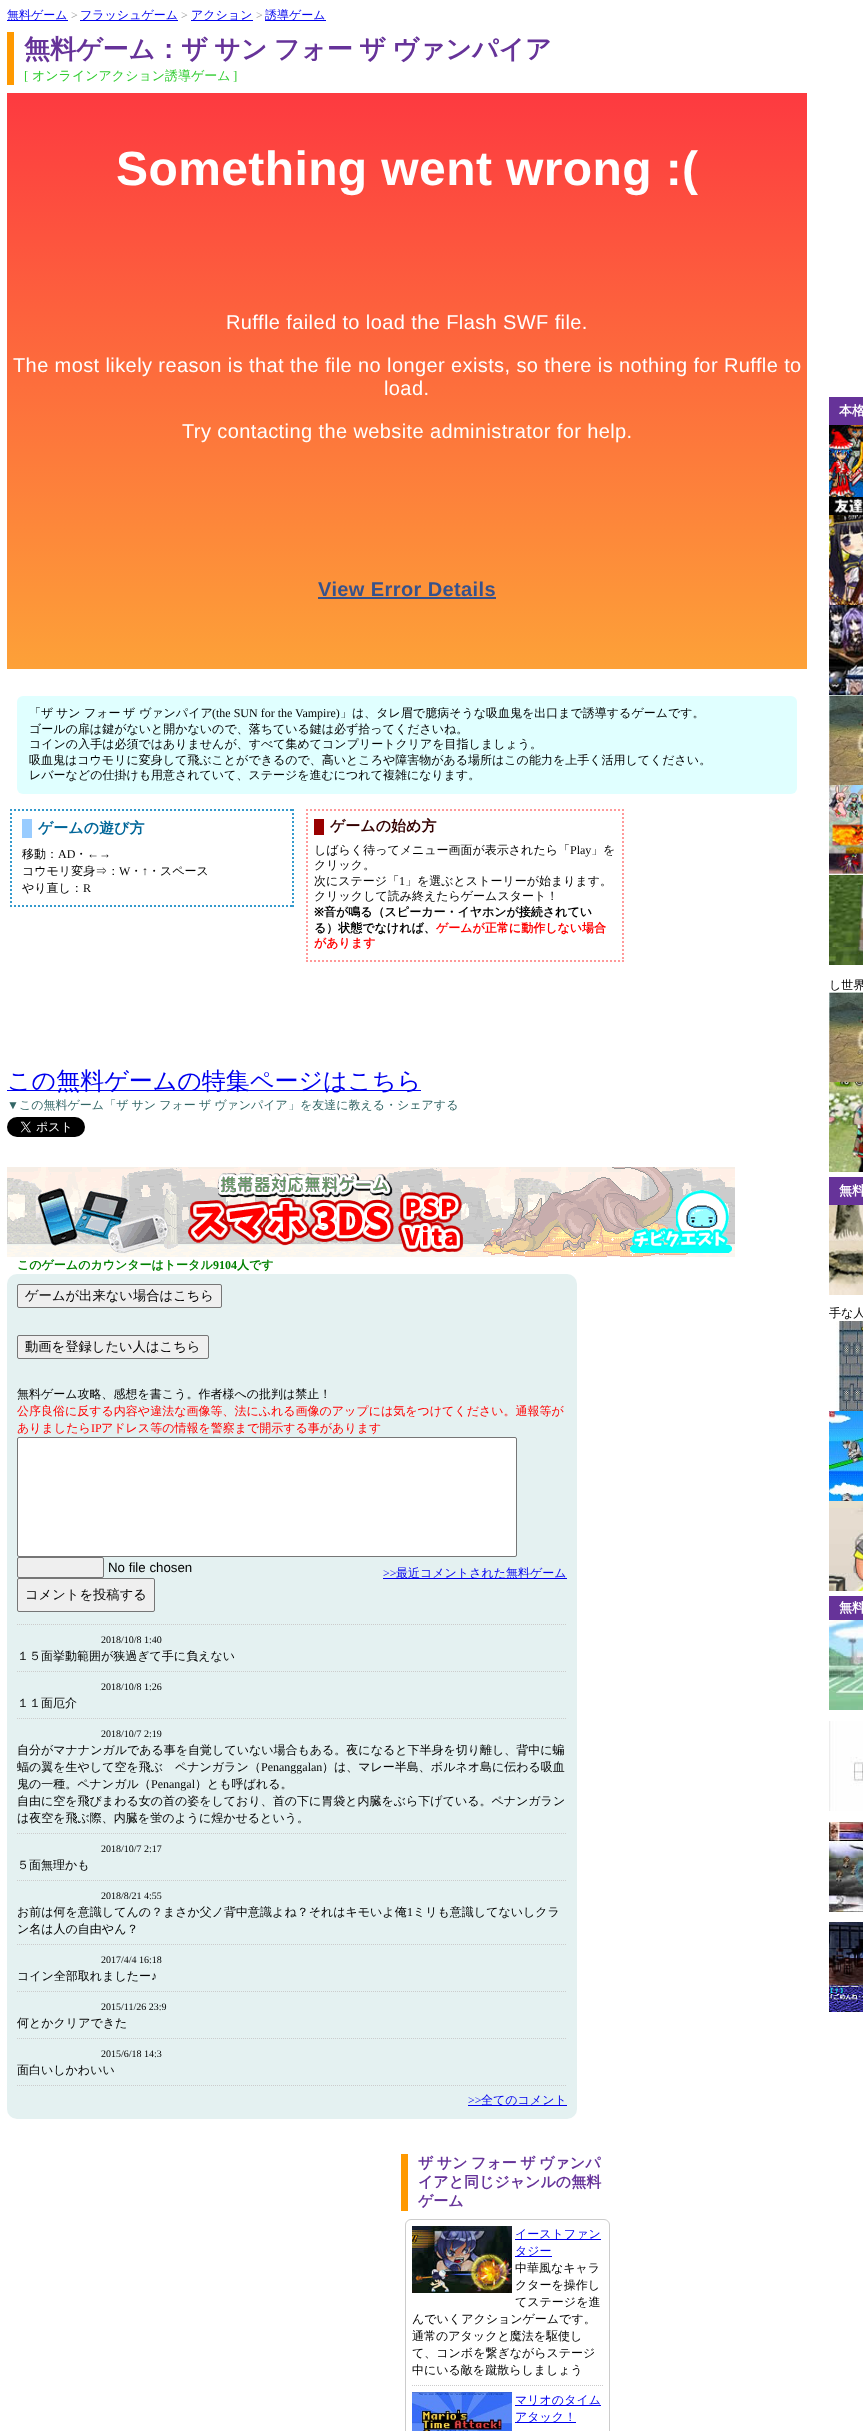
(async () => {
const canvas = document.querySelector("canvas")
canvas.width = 863
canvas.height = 2431
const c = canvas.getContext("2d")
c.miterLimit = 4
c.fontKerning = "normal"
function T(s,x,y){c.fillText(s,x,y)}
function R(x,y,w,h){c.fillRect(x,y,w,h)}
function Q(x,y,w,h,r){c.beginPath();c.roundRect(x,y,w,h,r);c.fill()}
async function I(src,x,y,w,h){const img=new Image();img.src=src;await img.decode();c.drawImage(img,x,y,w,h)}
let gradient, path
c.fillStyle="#fff"
R(0,0,863,2431)
c.fillStyle="#00e"
R(7,20,61,1)
c.font="500 12px WenQuanYi Zen Hei"
T("無料ゲーム",7,19)
c.font="12px Liberation Serif"
c.fillStyle="#999"
T(">",71,19)
c.fillStyle="#00e"
R(80,20,98,1)
c.font="500 12px WenQuanYi Zen Hei"
T("フラッシュゲーム",80,19)
c.font="12px Liberation Serif"
c.fillStyle="#999"
T(">",181,19)
c.fillStyle="#00e"
R(191,20,62,1)
c.font="500 12px WenQuanYi Zen Hei"
T("アクション",191,19)
c.font="12px Liberation Serif"
c.fillStyle="#999"
T(">",256,19)
c.fillStyle="#00e"
R(265,20,61,1)
c.font="500 12px WenQuanYi Zen Hei"
T("誘導ゲーム",265,19)
c.fillStyle="#f90"
R(7,32,7,53)
c.wordSpacing="-1.5px"
c.font="bold 26px WenQuanYi Zen Hei"
c.fillStyle="#639"
T("無料ゲーム：ザ サン フォー ザ ヴァンパイア",24,58)
c.wordSpacing="0px"
c.font="13px Liberation Serif"
c.fillStyle="#32cd32"
T("[",24,80)
c.font="500 13px WenQuanYi Zen Hei"
T("オンラインアクション誘導ゲーム",32,80)
c.font="13px Liberation Serif"
T("]",233,80)
gradient = c.createLinearGradient(407,93,407,669)
gradient.addColorStop(0,"#fd3a40")
gradient.addColorStop(1,"#fda138")
c.fillStyle = gradient
R(7,93,800,576)
c.letterSpacing="0.4px"
c.font="bold 48px Liberation Sans"
c.fillStyle="#fff"
T("Something went wrong :(",116,185)
c.font="20px Liberation Sans"
T("Ruffle failed to load the Flash SWF file.",226,329)
T("The most likely reason is that the file no longer exists, so there is nothing for Ruffle to",13,372)
T("load.",384,395)
T("Try contacting the website administrator for help.",182,438)
c.font="bold 20px Liberation Sans"
c.fillStyle="#37528c"
T("View Error Details",318,596)
R(318,597,178,2)
c.fillStyle="#e0ffff"
Q(17,696,780,98,6)
c.letterSpacing="0px"
c.font="500 12px WenQuanYi Zen Hei"
c.fillStyle="#000"
T("「ザ",29,717)
T("サン",56,717)
T("フォー",84,717)
T("ザ",123,717)
T("ヴァンパイア",139,717)
c.font="12px Liberation Serif"
T("(the SUN for the Vampire)",212,717)
c.font="500 12px WenQuanYi Zen Hei"
T("」は、タレ眉で臆病そうな吸血鬼を出口まで誘導するゲームです。",340,717)
T("ゴールの扉は鍵がないと開かないので、落ちている鍵は必ず拾ってくださいね。",29,733)
T("コインの入手は必須ではありませんが、すべて集めてコンプリートクリアを目指しましょう。",29,748)
T("吸血鬼はコウモリに変身して飛ぶことができるので、高いところや障害物がある場所はこの能力を上手く活用してください。",29,764)
T("レバーなどの仕掛けも用意されていて、ステージを進むにつれて複雑になります。",29,779)
path = new Path2D("M10 810h284")
c.strokeStyle="#39c"
c.lineWidth=2
c.setLineDash([2,2])
c.stroke(path)
path = new Path2D("M293 809v98")
c.stroke(path)
path = new Path2D("M10 906h284")
c.stroke(path)
path = new Path2D("M11 809v98")
c.stroke(path)
c.fillStyle="#9cf"
R(22,819,10,19)
c.font="bold 15px WenQuanYi Zen Hei"
c.fillStyle="#069"
T("ゲームの遊び方",38,833)
c.font="500 12px WenQuanYi Zen Hei"
c.fillStyle="#000"
T("移動：",22,858)
c.font="12px Liberation Serif"
T("AD",58,858)
c.font="500 12px WenQuanYi Zen Hei"
T("・",75,858)
c.font="12px Liberation Serif"
T("←→",87,858)
c.font="500 12px WenQuanYi Zen Hei"
T("コウモリ変身⇒：",22,875)
c.font="12px Liberation Serif"
T("W",119,875)
c.font="500 12px WenQuanYi Zen Hei"
T("・",130,875)
c.font="12px Liberation Serif"
T("↑",142,875)
c.font="500 12px WenQuanYi Zen Hei"
T("・スペース",148,875)
T("やり直し：",22,892)
c.font="12px Liberation Serif"
T("R",83,892)
path = new Path2D("M306 810h318")
c.strokeStyle="#f99"
c.stroke(path)
path = new Path2D("M623 809v153")
c.stroke(path)
path = new Path2D("M306 961h318")
c.stroke(path)
path = new Path2D("M307 809v153")
c.stroke(path)
c.fillStyle="#900"
R(314,819,10,16)
c.font="bold 15px WenQuanYi Zen Hei"
c.fillStyle="#300"
T("ゲームの始め方",330,831)
c.font="500 12px WenQuanYi Zen Hei"
c.fillStyle="#000"
T("しばらく待ってメニュー画面が表示されたら「",314,854)
c.font="12px Liberation Serif"
T("Play",570,854)
c.font="500 12px WenQuanYi Zen Hei"
T("」を",591,854)
T("クリック。",314,869)
T("次にステージ「",314,885)
c.font="12px Liberation Serif"
T("1",399,885)
c.font="500 12px WenQuanYi Zen Hei"
T("」を選ぶとストーリーが始まります。",405,885)
T("クリックして読み終えたらゲームスタート！",314,900)
c.font="bold 12px Noto Sans"
T("※",314,916)
c.font="bold 12px WenQuanYi Zen Hei"
T("音が鳴る（スピーカー・イヤホンが接続されてい",324,916)
T("る）状態でなければ、",314,932)
c.fillStyle="#f00"
T("ゲームが正常に動作しない場合",436,932)
T("があります",314,947)
c.fillStyle="#00e"
R(7,1090,414,1)
c.font="500 24px WenQuanYi Zen Hei"
T("この無料ゲームの特集ページはこちら",7,1089)
c.font="12px Liberation Serif"
c.fillStyle="#366"
T("▼",7,1109)
c.wordSpacing="-0.5px"
c.font="500 12px WenQuanYi Zen Hei"
T("この無料ゲーム「ザ サン フォー ザ ヴァンパイア」を友達に教える・シェアする",19,1109)
await I("1.png",7,1117,78,20)
await I("2.png",7,1167,728,90)
c.wordSpacing="0px"
c.font="bold 12px WenQuanYi Zen Hei"
c.fillStyle="#008000"
T("このゲームのカウンターはトータル",17,1269)
c.font="bold 12px Liberation Serif"
T("9104",213,1269)
c.font="bold 12px WenQuanYi Zen Hei"
T("人です",237,1269)
c.fillStyle="#e4f1f1"
Q(7,1274,570,845,10)
c.fillStyle="#efefef"
c.beginPath()
c.roundRect(17.5,1284.5,204,23,1.5)
c.fill()
c.strokeStyle="#767676"
c.lineWidth=1
c.setLineDash([])
c.stroke()
c.font="500 13.3px WenQuanYi Zen Hei"
c.fillStyle="#000"
T("ゲームが出来ない場合はこちら",25,1300)
c.fillStyle="#efefef"
c.beginPath()
c.roundRect(17.5,1335.5,191,23,1.5)
c.fill()
c.stroke()
c.fillStyle="#000"
T("動画を登録したい人はこちら",25,1351)
c.font="500 12px WenQuanYi Zen Hei"
T("無料ゲーム攻略、感想を書こう。作者様への批判は禁止！",17,1398)
c.fillStyle="#f00"
T("公序良俗に反する内容や違法な画像等、法にふれる画像のアップには気をつけてください。通報等が",17,1415)
T("ありましたら",17,1432)
c.font="12px Liberation Serif"
T("IP",91,1432)
c.font="500 12px WenQuanYi Zen Hei"
T("アドレス等の情報を警察まで開示する事があります",101,1432)
c.fillStyle="#fff"
c.beginPath()
c.roundRect(17.5,1437.5,499,119,1.5)
c.fill()
c.stroke()
c.fillStyle="#efefef"
c.beginPath()
c.roundRect(17.5,1557.5,86,20,1.5)
c.fill()
c.stroke()
c.font="13.3px Liberation Sans"
c.fillStyle="#000"
T("No file chosen",108,1572)
c.font="12px Liberation Serif"
c.fillStyle="#00e"
T(">>",383,1577)
R(383,1578,184,1)
c.font="500 12px WenQuanYi Zen Hei"
T("最近コメントされた無料ゲーム",396,1577)
c.fillStyle="#efefef"
c.beginPath()
c.roundRect(17.5,1578.5,137,33,1.5)
c.fill()
c.stroke()
c.font="500 13.3px WenQuanYi Zen Hei"
c.fillStyle="#000"
T("コメントを投稿する",25,1599)
path = new Path2D("M17 1624.5h550")
c.strokeStyle="#ccc"
c.setLineDash([1,1])
c.stroke(path)
c.font="10px Liberation Serif"
T("2018/10/8 1:40",101,1643)
c.font="500 12px WenQuanYi Zen Hei"
T("１５面挙動範囲が狭過ぎて手に負えない",17,1660)
path = new Path2D("M17 1671.5h550")
c.stroke(path)
c.font="10px Liberation Serif"
T("2018/10/8 1:26",101,1690)
c.font="500 12px WenQuanYi Zen Hei"
T("１１面厄介",17,1707)
path = new Path2D("M17 1718.5h550")
c.stroke(path)
c.font="10px Liberation Serif"
T("2018/10/7 2:19",101,1737)
c.font="500 12px WenQuanYi Zen Hei"
T("自分がマナナンガルである事を自覚していない場合もある。夜になると下半身を切り離し、背中に蝙",17,1754)
T("蝠の翼を生やして空を飛ぶ　ペナンガラン（",17,1771)
c.font="12px Liberation Serif"
T("Penanggalan",261,1771)
c.font="500 12px WenQuanYi Zen Hei"
T("）は、マレー半島、ボルネオ島に伝わる吸血",322,1771)
T("鬼の一種。ペナンガル（",17,1788)
c.font="12px Liberation Serif"
T("Penangal",151,1788)
c.font="500 12px WenQuanYi Zen Hei"
T("）とも呼ばれる。",195,1788)
T("自由に空を飛びまわる女の首の姿をしており、首の下に胃袋と内臓をぶら下げている。ペナンガラン",17,1805)
T("は夜空を飛ぶ際、内臓を蛍のように煌かせるという。",17,1822)
path = new Path2D("M17 1833.5h550")
c.stroke(path)
c.font="10px Liberation Serif"
T("2018/10/7 2:17",101,1852)
c.font="500 12px WenQuanYi Zen Hei"
T("５面無理かも",17,1869)
path = new Path2D("M17 1880.5h550")
c.stroke(path)
c.font="10px Liberation Serif"
T("2018/8/21 4:55",101,1899)
c.font="500 12px WenQuanYi Zen Hei"
T("お前は何を意識してんの？まさか父ノ背中意識よね？それはキモいよ俺",17,1916)
c.font="12px Liberation Serif"
T("1",407,1916)
c.font="500 12px WenQuanYi Zen Hei"
T("ミリも意識してないしクラ",413,1916)
T("ン名は人の自由やん？",17,1933)
path = new Path2D("M17 1944.5h550")
c.stroke(path)
c.font="10px Liberation Serif"
T("2017/4/4 16:18",101,1963)
c.font="500 12px WenQuanYi Zen Hei"
T("コイン全部取れましたー",17,1980)
c.font="12px Liberation Serif"
T("♪",151,1980)
path = new Path2D("M17 1991.5h550")
c.stroke(path)
c.font="10px Liberation Serif"
T("2015/11/26 23:9",101,2010)
c.font="500 12px WenQuanYi Zen Hei"
T("何とかクリアできた",17,2027)
path = new Path2D("M17 2038.5h550")
c.stroke(path)
c.font="10px Liberation Serif"
T("2015/6/18 14:3",101,2057)
c.font="500 12px WenQuanYi Zen Hei"
T("面白いしかわいい",17,2074)
path = new Path2D("M17 2085.5h550")
c.stroke(path)
c.font="12px Liberation Serif"
c.fillStyle="#00e"
T(">>",468,2104)
R(468,2105,99,1)
c.font="500 12px WenQuanYi Zen Hei"
T("全てのコメント",481,2104)
c.fillStyle="#f90"
R(401,2154,7,57)
c.wordSpacing="-1px"
c.font="bold 15px WenQuanYi Zen Hei"
c.fillStyle="#639"
T("ザ サン フォー ザ ヴァンパ",418,2168)
c.wordSpacing="0px"
T("イアと同じジャンルの無料",418,2187)
T("ゲーム",418,2206)
c.beginPath()
c.roundRect(405.5,2219.5,204,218,5.5)
c.setLineDash([])
c.stroke()
await I("3.png",412,2226,100,67)
c.fillStyle="#00e"
R(515,2239,86,1)
c.font="500 12px WenQuanYi Zen Hei"
T("イーストファン",515,2238)
R(515,2256,37,1)
T("タジー",515,2255)
c.fillStyle="#000"
T("中華風なキャラ",515,2272)
T("クターを操作し",515,2289)
T("てステージを進",515,2306)
T("んでいくアクションゲームです。",412,2323)
T("通常のアタックと魔法を駆使し",412,2340)
T("て、コンボを繋ぎながらステージ",412,2357)
T("中にいる敵を蹴散らしましょう",412,2374)
path = new Path2D("M412 2385.5h191")
c.setLineDash([1,1])
c.stroke(path)
await I("4.png",412,2392,100,39)
c.fillStyle="#00e"
R(515,2405,86,1)
T("マリオのタイム",515,2404)
R(515,2422,61,1)
T("アタック！",515,2421)
c.fillStyle="#639"
R(829,397,34,28)
c.font="bold 13px WenQuanYi Zen Hei"
c.fillStyle="#fff"
T("本格",839,415)
await I("5.png",829,425,34,90)
await I("6.png",829,515,34,90)
await I("7.png",829,605,34,90)
await I("8.png",829,695,34,90)
await I("9.png",829,785,34,90)
await I("10.png",829,875,34,90)
c.font="500 12px WenQuanYi Zen Hei"
c.fillStyle="#000"
T("し世界",829,989)
await I("8.png",829,992,34,90)
await I("11.png",829,1082,34,90)
c.fillStyle="#639"
R(829,1177,34,28)
c.font="bold 13px WenQuanYi Zen Hei"
c.fillStyle="#fff"
T("無料",839,1195)
await I("12.png",829,1205,34,90)
c.font="500 12px WenQuanYi Zen Hei"
c.fillStyle="#000"
T("手な人",829,1317)
await I("13.png",836,1321,27,90)
await I("14.png",829,1411,34,90)
await I("15.png",829,1501,34,90)
c.fillStyle="#639"
R(829,1596,34,24)
c.font="bold 13px WenQuanYi Zen Hei"
c.fillStyle="#fff"
T("無料",839,1612)
await I("16.png",829,1620,34,90)
await I("17.png",829,1721,34,90)
await I("18.png",829,1822,34,90)
await I("19.png",829,1922,34,90)
})()
